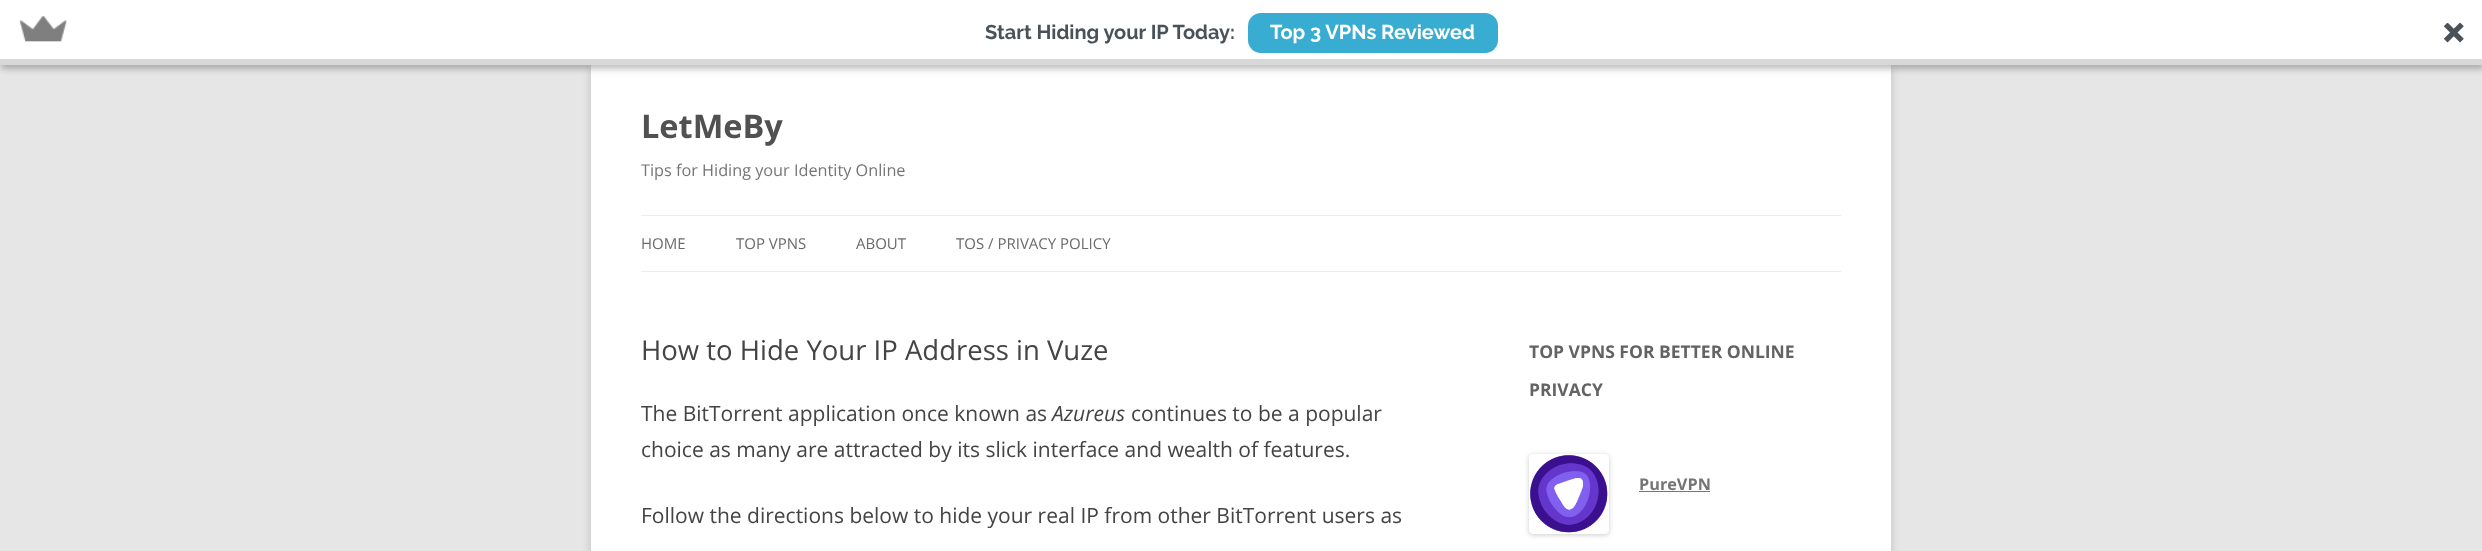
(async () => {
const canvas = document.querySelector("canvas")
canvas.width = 2482
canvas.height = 551
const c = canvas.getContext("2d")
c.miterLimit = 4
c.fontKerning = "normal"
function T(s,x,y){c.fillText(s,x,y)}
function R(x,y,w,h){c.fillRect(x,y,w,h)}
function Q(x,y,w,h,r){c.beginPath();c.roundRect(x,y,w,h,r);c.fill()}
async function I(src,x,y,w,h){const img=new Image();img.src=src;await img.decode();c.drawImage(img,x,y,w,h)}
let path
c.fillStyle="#e6e6e6"
R(0,0,2482,551)
c.fillStyle="#6464644d"
c.filter="blur(4px)"
c.beginPath()
c.rect(591,68,1300,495)
c.fill()
c.filter="none"
c.fillStyle="#fff"
R(591,65,1300,486)
c.fillStyle="#00000040"
c.filter="blur(3px)"
c.beginPath()
c.rect(1,4,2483,65)
c.fill()
c.filter="none"
c.fillStyle="#d8d8d8"
R(0,59,2482,6)
c.fillStyle="#fff"
R(0,0,2482,59)
await I("1.png",19,16,48,26)
c.font="bold 20px Raleway"
c.fillStyle="#495259"
T("Start Hiding your IP Today:",985,39)
c.fillStyle="#39add1"
Q(1248,13,250,40,13)
c.fillStyle="#fff"
T("Top 3 VPNs Reviewed",1270,39)
await I("2.png",2444,23,20,20)
c.font="bold 32.5px Open Sans"
c.fillStyle="#515151"
T("LetMeBy",641,138)
c.font="16.25px Open Sans"
c.fillStyle="#757575"
T("Tips for Hiding your Identity Online",641,176)
c.fillStyle="#ededed"
R(641,215,1200,1)
R(641,271,1200,1)
c.font="15px Open Sans"
c.fillStyle="#6a6a6a"
T("HOME",641,249)
T("TOP VPNS",736,249)
T("ABOUT",856,249)
T("TOS / PRIVACY POLICY",956,249)
c.font="27.5px Open Sans"
c.fillStyle="#444"
T("How to Hide Your IP Address in Vuze",641,360)
c.font="21px Open Sans"
T("The BitTorrent application once known as",641,421)
c.font="italic 21px Open Sans"
T("Azureus",1052,421)
c.font="21px Open Sans"
T("continues to be a popular",1131,421)
T("choice as many are attracted by its slick interface and wealth of features.",641,457)
T("Follow the directions below to hide your real IP from other BitTorrent users as",641,523)
c.font="bold 17.5px Open Sans"
c.fillStyle="#636363"
T("TOP VPNS FOR BETTER ONLINE",1529,358)
T("PRIVACY",1529,396)
c.save()
path = new Path2D("M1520 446h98v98h-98zm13 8h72c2 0 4 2 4 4v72c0 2-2 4-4 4h-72c-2 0-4-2-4-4v-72c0-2 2-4 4-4z")
c.clip(path,"evenodd")
c.fillStyle="#00000033"
c.filter="blur(2.5px)"
c.beginPath()
c.roundRect(1529,455,80,80,4)
c.fill()
c.filter="none"
c.restore()
await I("3.png",1530,455,78,78)
c.font="bold 16.25px Open Sans"
c.fillStyle="#757575"
T("PureVPN",1639,490)
R(1639,491,71,1)
})()
